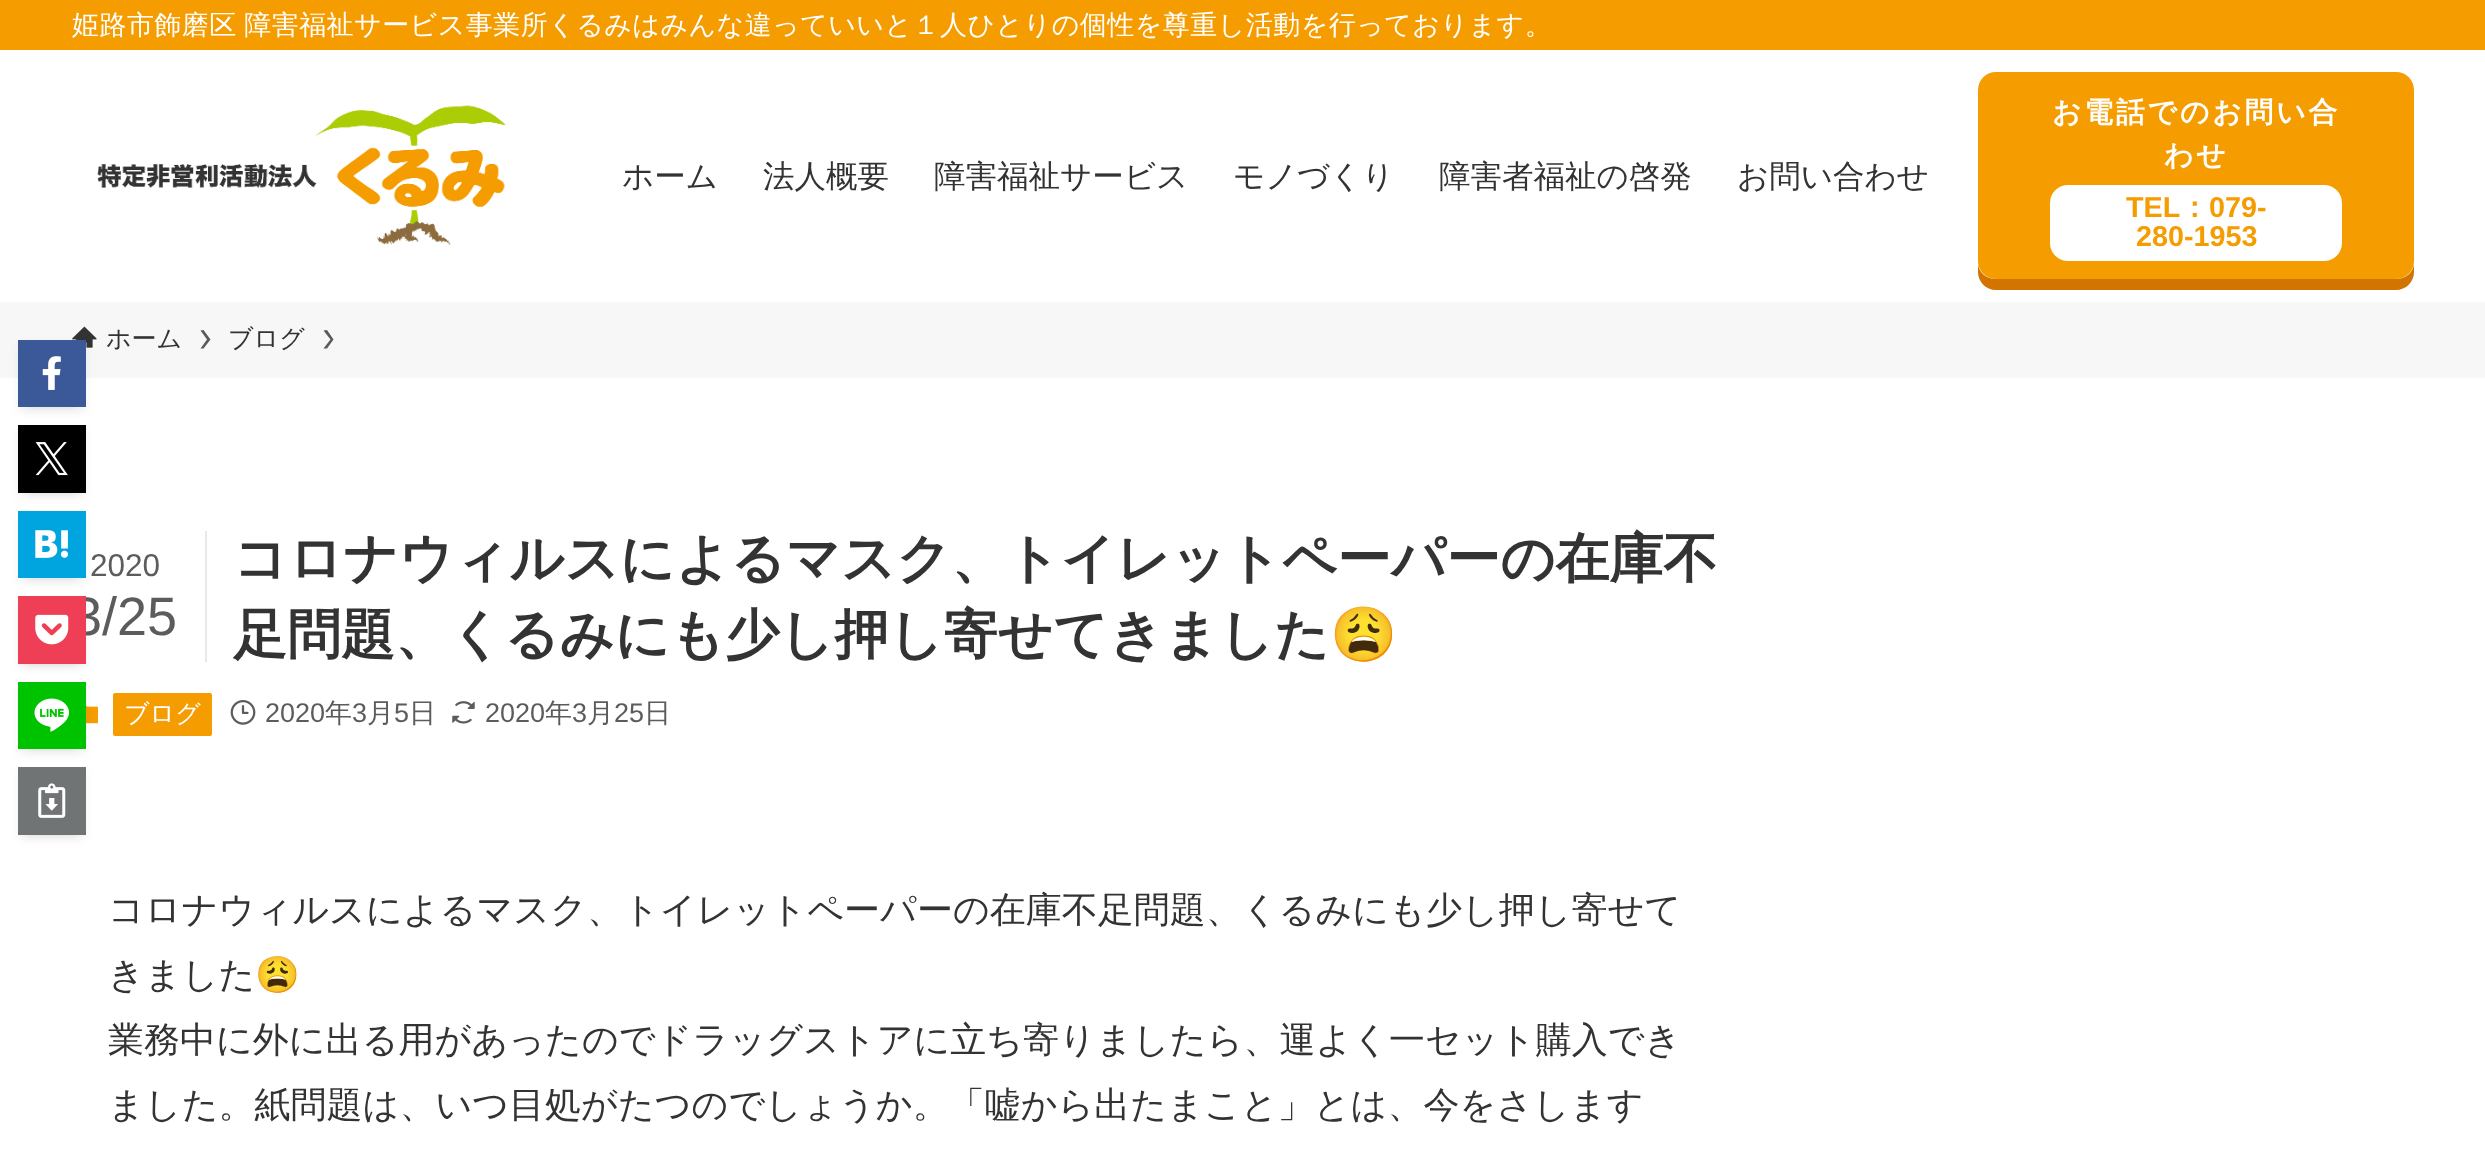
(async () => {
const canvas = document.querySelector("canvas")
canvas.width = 2485
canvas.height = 1172
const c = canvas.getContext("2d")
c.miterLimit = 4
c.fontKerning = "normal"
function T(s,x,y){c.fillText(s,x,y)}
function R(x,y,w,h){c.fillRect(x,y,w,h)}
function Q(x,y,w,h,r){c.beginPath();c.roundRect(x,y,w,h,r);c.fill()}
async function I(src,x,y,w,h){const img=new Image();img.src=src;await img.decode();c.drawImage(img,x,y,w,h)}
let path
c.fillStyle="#fff"
R(0,0,2485,1172)
c.fillStyle="#f59c00"
R(0,0,2485,50)
c.letterSpacing="0.45px"
c.wordSpacing="-1px"
c.font="500 27px WenQuanYi Zen Hei"
c.fillStyle="#fff"
T("姫路市飾磨区 障害福祉サービス事業所くるみはみんな違っていいと１人ひとりの個性を尊重し活動を行っております。",72,34)
await I("1.png",97,105,409,141)
c.letterSpacing="0px"
c.wordSpacing="0px"
c.font="500 31.5px WenQuanYi Zen Hei"
c.fillStyle="#333"
T("ホーム",622,187)
T("法人概要",763,187)
T("障害福祉サービス",934,187)
T("モノづくり",1233,187)
T("障害者福祉の啓発",1439,187)
T("お問い合わせ",1737,187)
c.fillStyle="#d27500"
path = new Path2D("M1978 264v8c0 10 8 18 18 18h400c10 0 18-8 18-18v-8c-1 9-9 15-18 15h-400c-9 0-17-6-18-15z")
c.fill(path)
c.fillStyle="#f59c00"
Q(1978,72,436,207,18)
c.letterSpacing="2.9px"
c.font="bold 28.75px WenQuanYi Zen Hei"
c.fillStyle="#fff"
T("お電話でのお問い合",2052,122)
T("わせ",2164,165)
Q(2050,185,292,76,18)
c.letterSpacing="0px"
c.font="bold 28.75px Liberation Sans"
c.fillStyle="#f59c00"
T("TEL",2126,217)
c.font="bold 28.75px WenQuanYi Zen Hei"
T("：",2180,217)
c.font="bold 28.75px Liberation Sans"
T("079-",2209,217)
T("280-1953",2136,246)
c.fillStyle="#f7f7f7"
R(0,302,2485,76)
await I("2.png",72,326,25,22)
c.font="500 25px WenQuanYi Zen Hei"
c.fillStyle="#333"
T("ホーム",106,347)
c.fillStyle="#5a5a5a"
path = new Path2D("M203.5 330l-3 .5l6.5 9l-6.5 9h3l7-9z")
c.fill(path)
c.fillStyle="#333"
T("ブログ",228,347)
c.fillStyle="#5a5a5a"
path = new Path2D("M327 330l-3.5 .5l7 9l-7 9h3.5l6.5-9z")
c.fill(path)
c.fillStyle="#0000001a"
c.filter="blur(4.5px)"
c.beginPath()
c.rect(27,358,50,49)
c.fill()
c.filter="none"
c.fillStyle="#0000000d"
c.filter="blur(4.5px)"
c.beginPath()
c.rect(18,344,68,68)
c.fill()
c.filter="none"
c.fillStyle="#3b5998"
R(18,340,68,67)
await I("3.png",42,356,19,34)
c.fillStyle="#0000001a"
c.filter="blur(4.5px)"
c.beginPath()
c.rect(27,443,50,50)
c.fill()
c.filter="none"
c.fillStyle="#0000000d"
c.filter="blur(4.5px)"
c.beginPath()
c.rect(18,430,68,67)
c.fill()
c.filter="none"
c.fillStyle="#000"
R(18,425,68,68)
await I("4.png",35,442,33,34)
c.fillStyle="#0000001a"
c.filter="blur(4.5px)"
c.beginPath()
c.rect(27,529,50,49)
c.fill()
c.filter="none"
c.fillStyle="#0000000d"
c.filter="blur(4.5px)"
c.beginPath()
c.rect(18,515,68,68)
c.fill()
c.filter="none"
c.fillStyle="#00a4de"
R(18,511,68,67)
await I("5.png",35,530,34,28)
c.fillStyle="#0000001a"
c.filter="blur(4.5px)"
c.beginPath()
c.rect(27,614,50,50)
c.fill()
c.filter="none"
c.fillStyle="#0000000d"
c.filter="blur(4.5px)"
c.beginPath()
c.rect(18,601,68,67)
c.fill()
c.filter="none"
c.font="54px Liberation Sans"
c.fillStyle="#5c5c5c"
T("3/25",72,635)
c.fillStyle="#ef3f56"
R(18,596,68,68)
await I("6.png",35,614,34,31)
await I("9.png",86,705,12,19)
c.fillStyle="#0000001a"
c.filter="blur(4.5px)"
c.beginPath()
c.rect(27,700,50,49)
c.fill()
c.filter="none"
c.fillStyle="#0000000d"
c.filter="blur(4.5px)"
c.beginPath()
c.rect(18,686,68,68)
c.fill()
c.filter="none"
c.fillStyle="#00c300"
R(18,682,68,67)
await I("7.png",34,698,35,34)
c.fillStyle="#0000001a"
c.filter="blur(4.5px)"
c.beginPath()
c.rect(27,785,50,50)
c.fill()
c.filter="none"
c.fillStyle="#0000000d"
c.filter="blur(4.5px)"
c.beginPath()
c.rect(18,772,68,67)
c.fill()
c.filter="none"
c.fillStyle="#717475"
R(18,767,68,68)
await I("8.png",38,783,28,35)
c.fillStyle="#e9e9e9"
R(205,531,2,131)
c.font="31.5px Liberation Sans"
c.fillStyle="#5c5c5c"
T("2020",90,576)
c.font="bold 54px WenQuanYi Zen Hei"
c.fillStyle="#333"
T("コロナウィルスによるマスク、トイレットペーパーの在庫不",233,577)
T("足問題、くるみにも少し押し寄せてきました",233,653)
c.font="bold 54px Noto Color Emoji"
T("😩",1330,653)
c.fillStyle="#f59c00"
Q(113,693,99,43,2)
c.font="500 25px WenQuanYi Zen Hei"
c.fillStyle="#fff"
T("ブログ",124,722)
await I("10.png",230,700,26,25)
c.font="27px Liberation Sans"
c.fillStyle="#5c5c5c"
T("2020",265,722)
c.font="500 27px WenQuanYi Zen Hei"
T("年",325,722)
c.font="27px Liberation Sans"
T("3",352,722)
c.font="500 27px WenQuanYi Zen Hei"
T("月",367,722)
c.font="27px Liberation Sans"
T("5",394,722)
c.font="500 27px WenQuanYi Zen Hei"
T("日",409,722)
await I("11.png",452,701,23,23)
c.font="27px Liberation Sans"
T("2020",485,722)
c.font="500 27px WenQuanYi Zen Hei"
T("年",545,722)
c.font="27px Liberation Sans"
T("3",572,722)
c.font="500 27px WenQuanYi Zen Hei"
T("月",587,722)
c.font="27px Liberation Sans"
T("25",614,722)
c.font="500 27px WenQuanYi Zen Hei"
T("日",644,722)
c.font="500 36px WenQuanYi Zen Hei"
c.fillStyle="#333"
T("コロナウィルスによるマスク、トイレットペーパーの在庫不足問題、くるみにも少し押し寄せて",108,922)
T("きました",108,987)
c.font="36px Noto Color Emoji"
T("😩",255,987)
c.font="500 36px WenQuanYi Zen Hei"
T("業務中に外に出る用があったのでドラッグストアに立ち寄りましたら、運よく一セット購入でき",108,1052)
T("ました。紙問題は、いつ目処がたつのでしょうか。「嘘から出たまこと」とは、今をさします",108,1117)
})()
